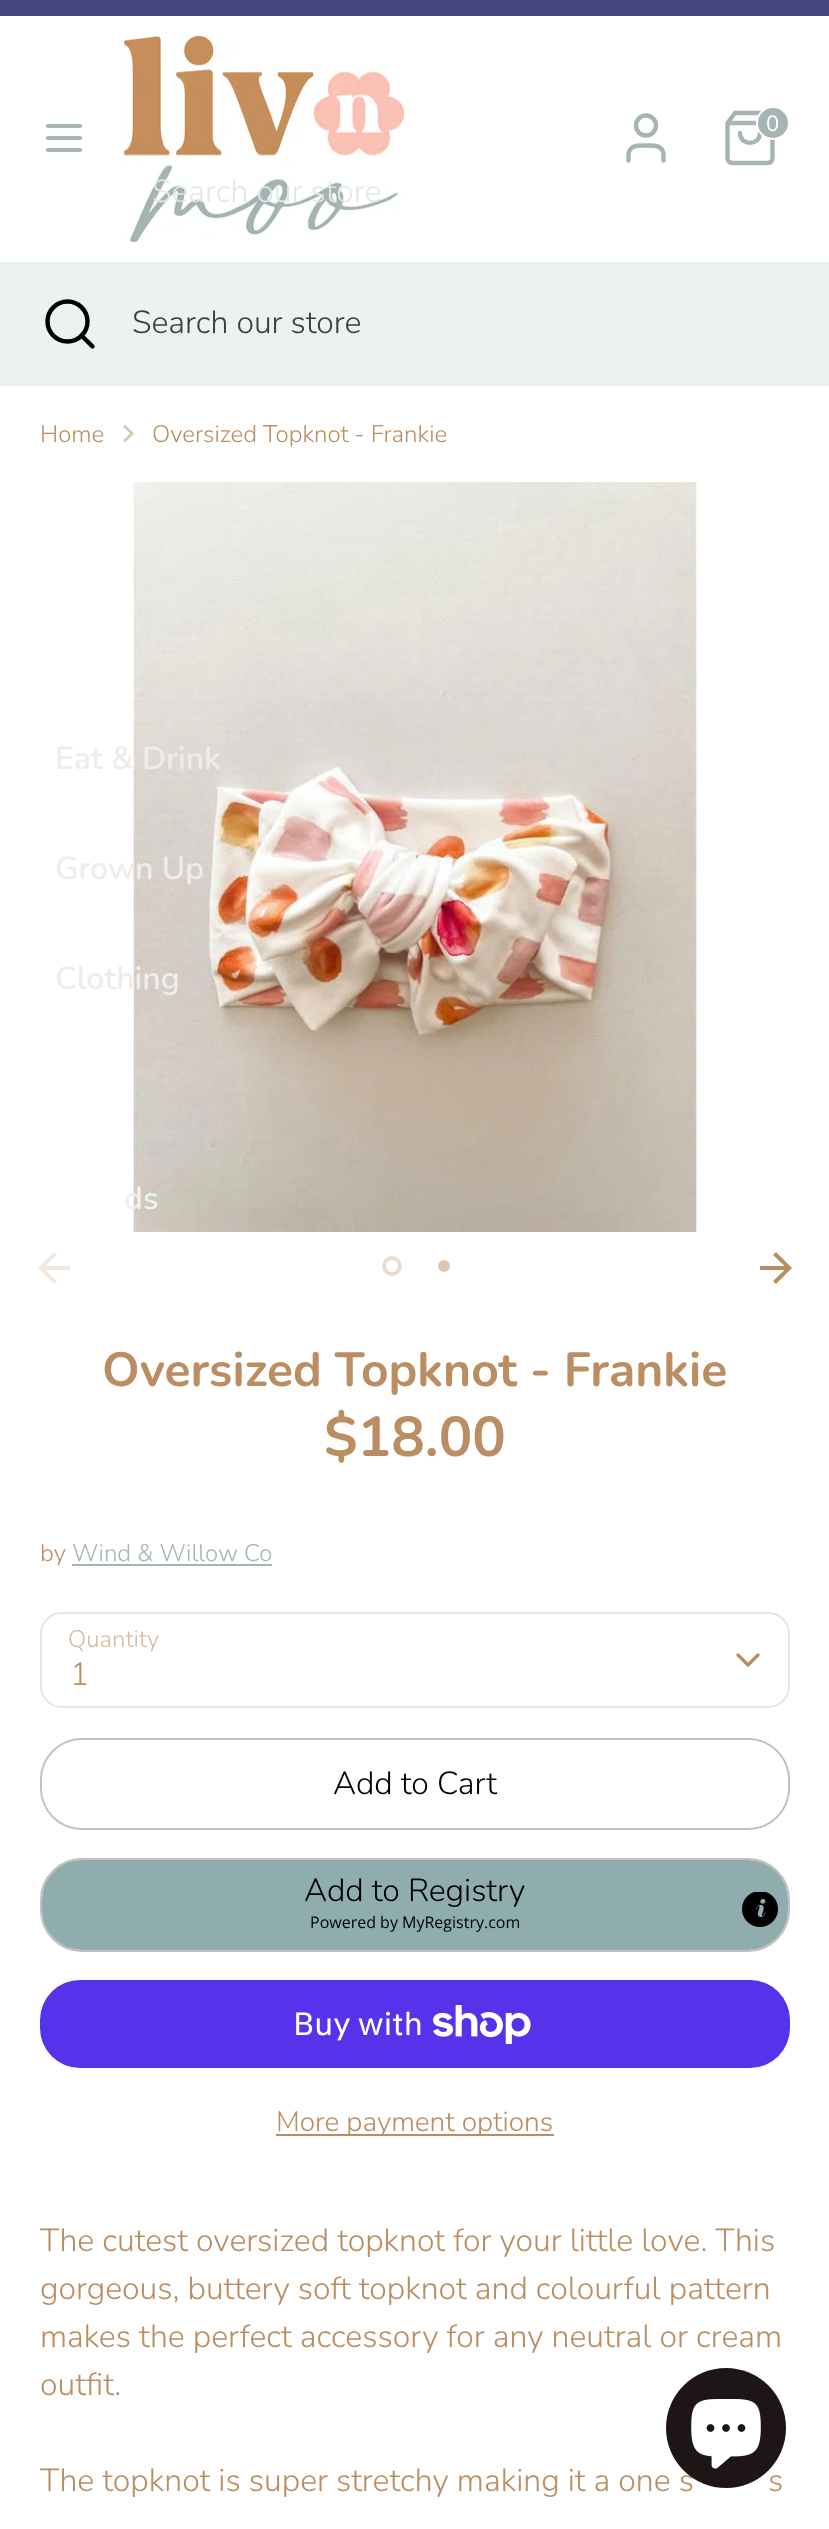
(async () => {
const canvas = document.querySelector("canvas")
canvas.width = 829
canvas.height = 2529
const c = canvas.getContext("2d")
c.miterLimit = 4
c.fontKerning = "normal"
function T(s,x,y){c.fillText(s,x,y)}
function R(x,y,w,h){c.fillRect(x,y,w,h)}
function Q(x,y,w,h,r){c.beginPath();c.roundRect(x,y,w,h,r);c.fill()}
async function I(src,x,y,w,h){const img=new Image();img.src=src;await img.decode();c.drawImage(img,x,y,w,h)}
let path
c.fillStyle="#fff"
R(0,0,829,2529)
c.fillStyle="#43467f"
R(0,0,829,16)
path = new Path2D("M48 138h32m-32-12h32m-32 24h32")
c.strokeStyle="#a7b4b4"
c.lineWidth=4
c.lineCap="round"
c.lineJoin="round"
c.stroke(path)
await I("1.png",124,36,280,206)
path = new Path2D("M663.5 160.5v-7c-2-9-10.5-8-17.5-8c-7 0-15.5-1-17.5 8v7")
c.lineWidth=4.4
c.stroke(path)
c.beginPath()
c.arc(646,125.5,10,0,7)
c.stroke()
path = new Path2D("M735 113l-7.5 10v35c0 3 2 5 5 5h35c3 0 5-2 5-5v-35l-7.5-10zm-7.5 10h45m-12.5 10c0 13-20 13-20 0")
c.stroke(path)
c.fillStyle="#a7b4b4"
c.beginPath()
c.arc(773,123,16,0,7)
c.fill()
c.strokeStyle="#fff"
c.lineWidth=2
c.stroke()
c.font="22px Nunito"
c.fillStyle="#fff"
T("0",766,131)
c.font="300 32px Nunito"
c.fillStyle="#e3e8e7"
T("Search our store",152,202)
await I("2.png",131,482,571,750)
c.font="600 32px Nunito"
c.fillStyle="#efece9"
T("Eat & Drink",55,769)
T("Grown Up",55,879)
T("Clothing",55,989)
c.fillStyle="#f2f1ef"
T("ds",124,1209)
c.fillStyle="#ecf1f2"
R(0,262,829,124)
c.beginPath()
c.arc(67.5,321.5,20,0,7)
c.strokeStyle="#000"
c.lineWidth=4.4
c.stroke()
path = new Path2D("M92.5 346.5l-11-11")
c.stroke(path)
c.font="300 32px Nunito"
c.fillStyle="#3b3c3d"
T("Search our store",132,333)
c.font="300 24px Nunito"
c.fillStyle="#ba8e62"
T("Home",40,442)
c.fillStyle="#ddc7b1"
path = new Path2D("M123 440.5l7-7l-7-7l2-2l9 9l-9 9z")
c.fill(path)
c.fillStyle="#ba8e62"
T("Oversized Topknot - Frankie",152,442)
c.fillStyle="#f1e8e0"
path = new Path2D("M70 1266h-24.5l11.5-11l-3-3l-16 16l16 16l3-3l-11.5-11h24.5z")
c.fill(path)
c.fillStyle="#ba8e62"
path = new Path2D("M776 1252l-3 3l11.5 11h-24.5v4h24.5l-11.5 11l3 3l16-16z")
c.fill(path)
c.beginPath()
c.arc(392,1266,8,0,7)
c.strokeStyle="#eaddd0"
c.lineWidth=4
c.stroke()
c.fillStyle="#ddc7b1"
c.beginPath()
c.arc(444,1266,6,0,7)
c.fill()
c.font="bold 48px Nunito"
c.fillStyle="#ba8e62"
T("Oversized Topknot - Frankie",102,1386)
c.font="bold 56px Nunito"
T("$18.00",324,1456)
c.font="300 24px Nunito"
T("by",40,1561)
c.fillStyle="#a7b4b4"
T("Wind & Willow Co",72,1561)
R(72,1564,200,2)
c.fillStyle="#d6bba1"
T("Quantity",68,1647)
c.beginPath()
c.roundRect(41,1613,748,94,21)
c.strokeStyle="#eee3d8"
c.lineWidth=2
c.lineJoin="miter"
c.stroke()
path = new Path2D("M738 1655l10 10l10-10")
c.strokeStyle="#ba8e62"
c.lineWidth=3.3
c.lineJoin="round"
c.stroke(path)
c.font="300 32px Nunito"
c.fillStyle="#ba8e62"
T("1",70,1685)
c.beginPath()
c.roundRect(41,1739,748,90,41)
c.strokeStyle="#c1bfbf"
c.lineWidth=2
c.lineJoin="miter"
c.stroke()
c.fillStyle="#fff"
Q(42,1740,746,88,40)
c.fillStyle="#080000"
T("Add to Cart",333,1794)
c.beginPath()
c.roundRect(41,1859,748,92,41)
c.stroke()
c.fillStyle="#8facae"
c.beginPath()
c.roundRect(43,1861,744,88,39)
c.fill()
c.strokeStyle="#8facae"
c.stroke()
c.fillStyle="#000"
T("Add to Registry",304,1901)
c.font="16px Open Sans"
T("Powered by MyRegistry.com",310,1928)
await I("3.png",742,1892,36,35)
c.fillStyle="#5433eb"
Q(40,1980,750,88,40)
c.font="32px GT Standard"
c.fillStyle="#fff"
T("Buy with",293,2035)
await I("4.png",433,2005,98,39)
c.fillStyle="#ba8e62"
R(276,2134,278,2)
c.font="300 28px Nunito"
T("More payment options",276,2131)
c.font="300 32px Nunito"
T("The cutest oversized topknot for your little love. This",40,2251)
T("gorgeous, buttery soft topknot and colourful pattern",40,2299)
T("makes the perfect accessory for any neutral or cream",40,2347)
T("outfit.",40,2395)
T("The topknot is super stretchy making it a one s",40,2491)
T("s",768,2491)
c.fillStyle="#1e1616"
c.beginPath()
c.arc(726,2428,60,0,7)
c.fill()
await I("5.png",691,2399,70,70)
})()
